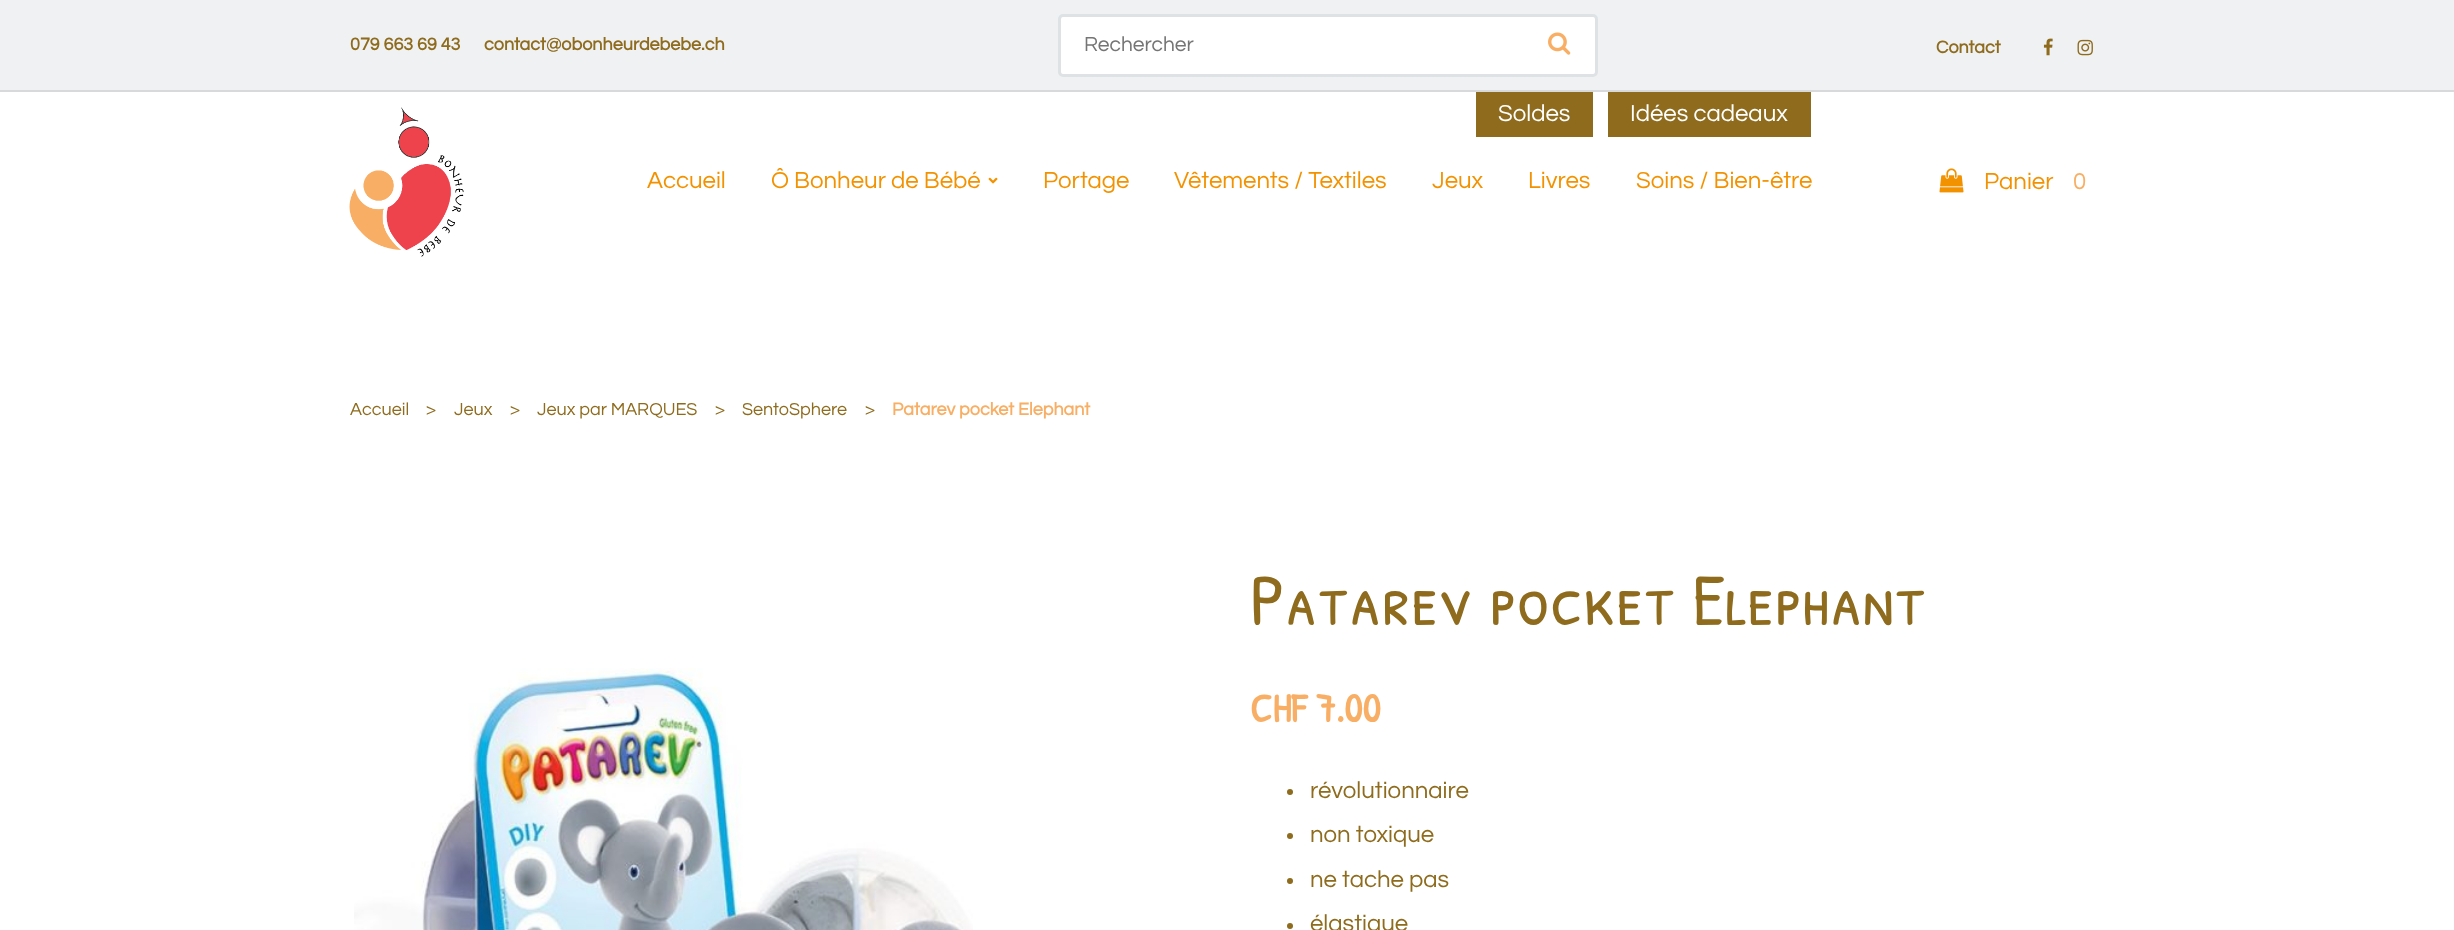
(async () => {
const canvas = document.querySelector("canvas")
canvas.width = 2454
canvas.height = 930
const c = canvas.getContext("2d")
c.miterLimit = 4
c.fontKerning = "normal"
function T(s,x,y){c.fillText(s,x,y)}
function R(x,y,w,h){c.fillRect(x,y,w,h)}
function Q(x,y,w,h,r){c.beginPath();c.roundRect(x,y,w,h,r);c.fill()}
async function I(src,x,y,w,h){const img=new Image();img.src=src;await img.decode();c.drawImage(img,x,y,w,h)}
c.fillStyle="#fff"
R(0,0,2454,930)
c.fillStyle="#f0f1f3"
R(0,0,2454,90)
c.fillStyle="#d8d9db"
R(0,90,2454,2)
c.font="bold 18px Questrial"
c.fillStyle="#8e6b1d"
T("079 663 69 43",350,50)
T("contact@obonheurdebebe.ch",484,50)
c.fillStyle="#fff"
Q(1061,17,534,57,1.5)
c.beginPath()
c.roundRect(1059.5,15.5,537,60,3.5)
c.strokeStyle="#dfe2e5"
c.lineWidth=3
c.stroke()
c.font="21px Questrial"
c.fillStyle="#757575"
T("Rechercher",1084,51)
await I("1.png",1548,32,23,23)
c.font="bold 18px Questrial"
c.fillStyle="#8e6b1d"
T("Contact",1936,53)
await I("2.png",2043,38,10,18)
await I("3.png",2077,39,16,17)
await I("4.png",349,107,115,150)
R(1476,92,117,45)
c.font="24px Questrial"
c.fillStyle="#fff"
T("Soldes",1498,121)
c.fillStyle="#8e6b1d"
R(1608,92,203,45)
c.fillStyle="#fff"
T("Idées cadeaux",1630,121)
c.fillStyle="#f39200"
T("Accueil",647,188)
T("Ô Bonheur de Bébé",771,188)
await I("5.png",988,177,10,7)
T("Portage",1043,188)
T("Vêtements / Textiles",1174,188)
T("Jeux",1432,188)
T("Livres",1528,188)
T("Soins / Bien-être",1636,188)
await I("6.png",1939,168,25,25)
T("Panier",1984,189)
c.fillStyle="#f8af65"
T("0",2073,189)
c.font="18px Questrial"
c.fillStyle="#8e6b1d"
T("Accueil",350,415)
T(">",426,415)
T("Jeux",454,415)
T(">",510,415)
T("Jeux par MARQUES",537,415)
T(">",715,415)
T("SentoSphere",742,415)
T(">",865,415)
c.font="bold 18px Questrial"
c.fillStyle="#f8af65"
T("Patarev pocket Elephant",892,415)
await I("7.png",354,668,619,262)
c.font="73.5px Patrick Hand SC"
c.fillStyle="#8e6b1d"
T("Patarev pocket Elephant",1250,625)
c.font="bold 40.5px Patrick Hand SC"
c.fillStyle="#f8af65"
T("CHF 7.00",1250,722)
c.fillStyle="#8e6b1d"
c.beginPath()
c.arc(1290,792,3,0,7)
c.fill()
c.font="24px Questrial"
T("révolutionnaire",1310,798)
c.beginPath()
c.arc(1290,836,3,0,7)
c.fill()
T("non toxique",1310,842)
c.beginPath()
c.arc(1290,881,3,0,7)
c.fill()
T("ne tache pas",1310,887)
c.beginPath()
c.arc(1290,926,3,0,7)
c.fill()
T("élastique",1310,931)
})()
